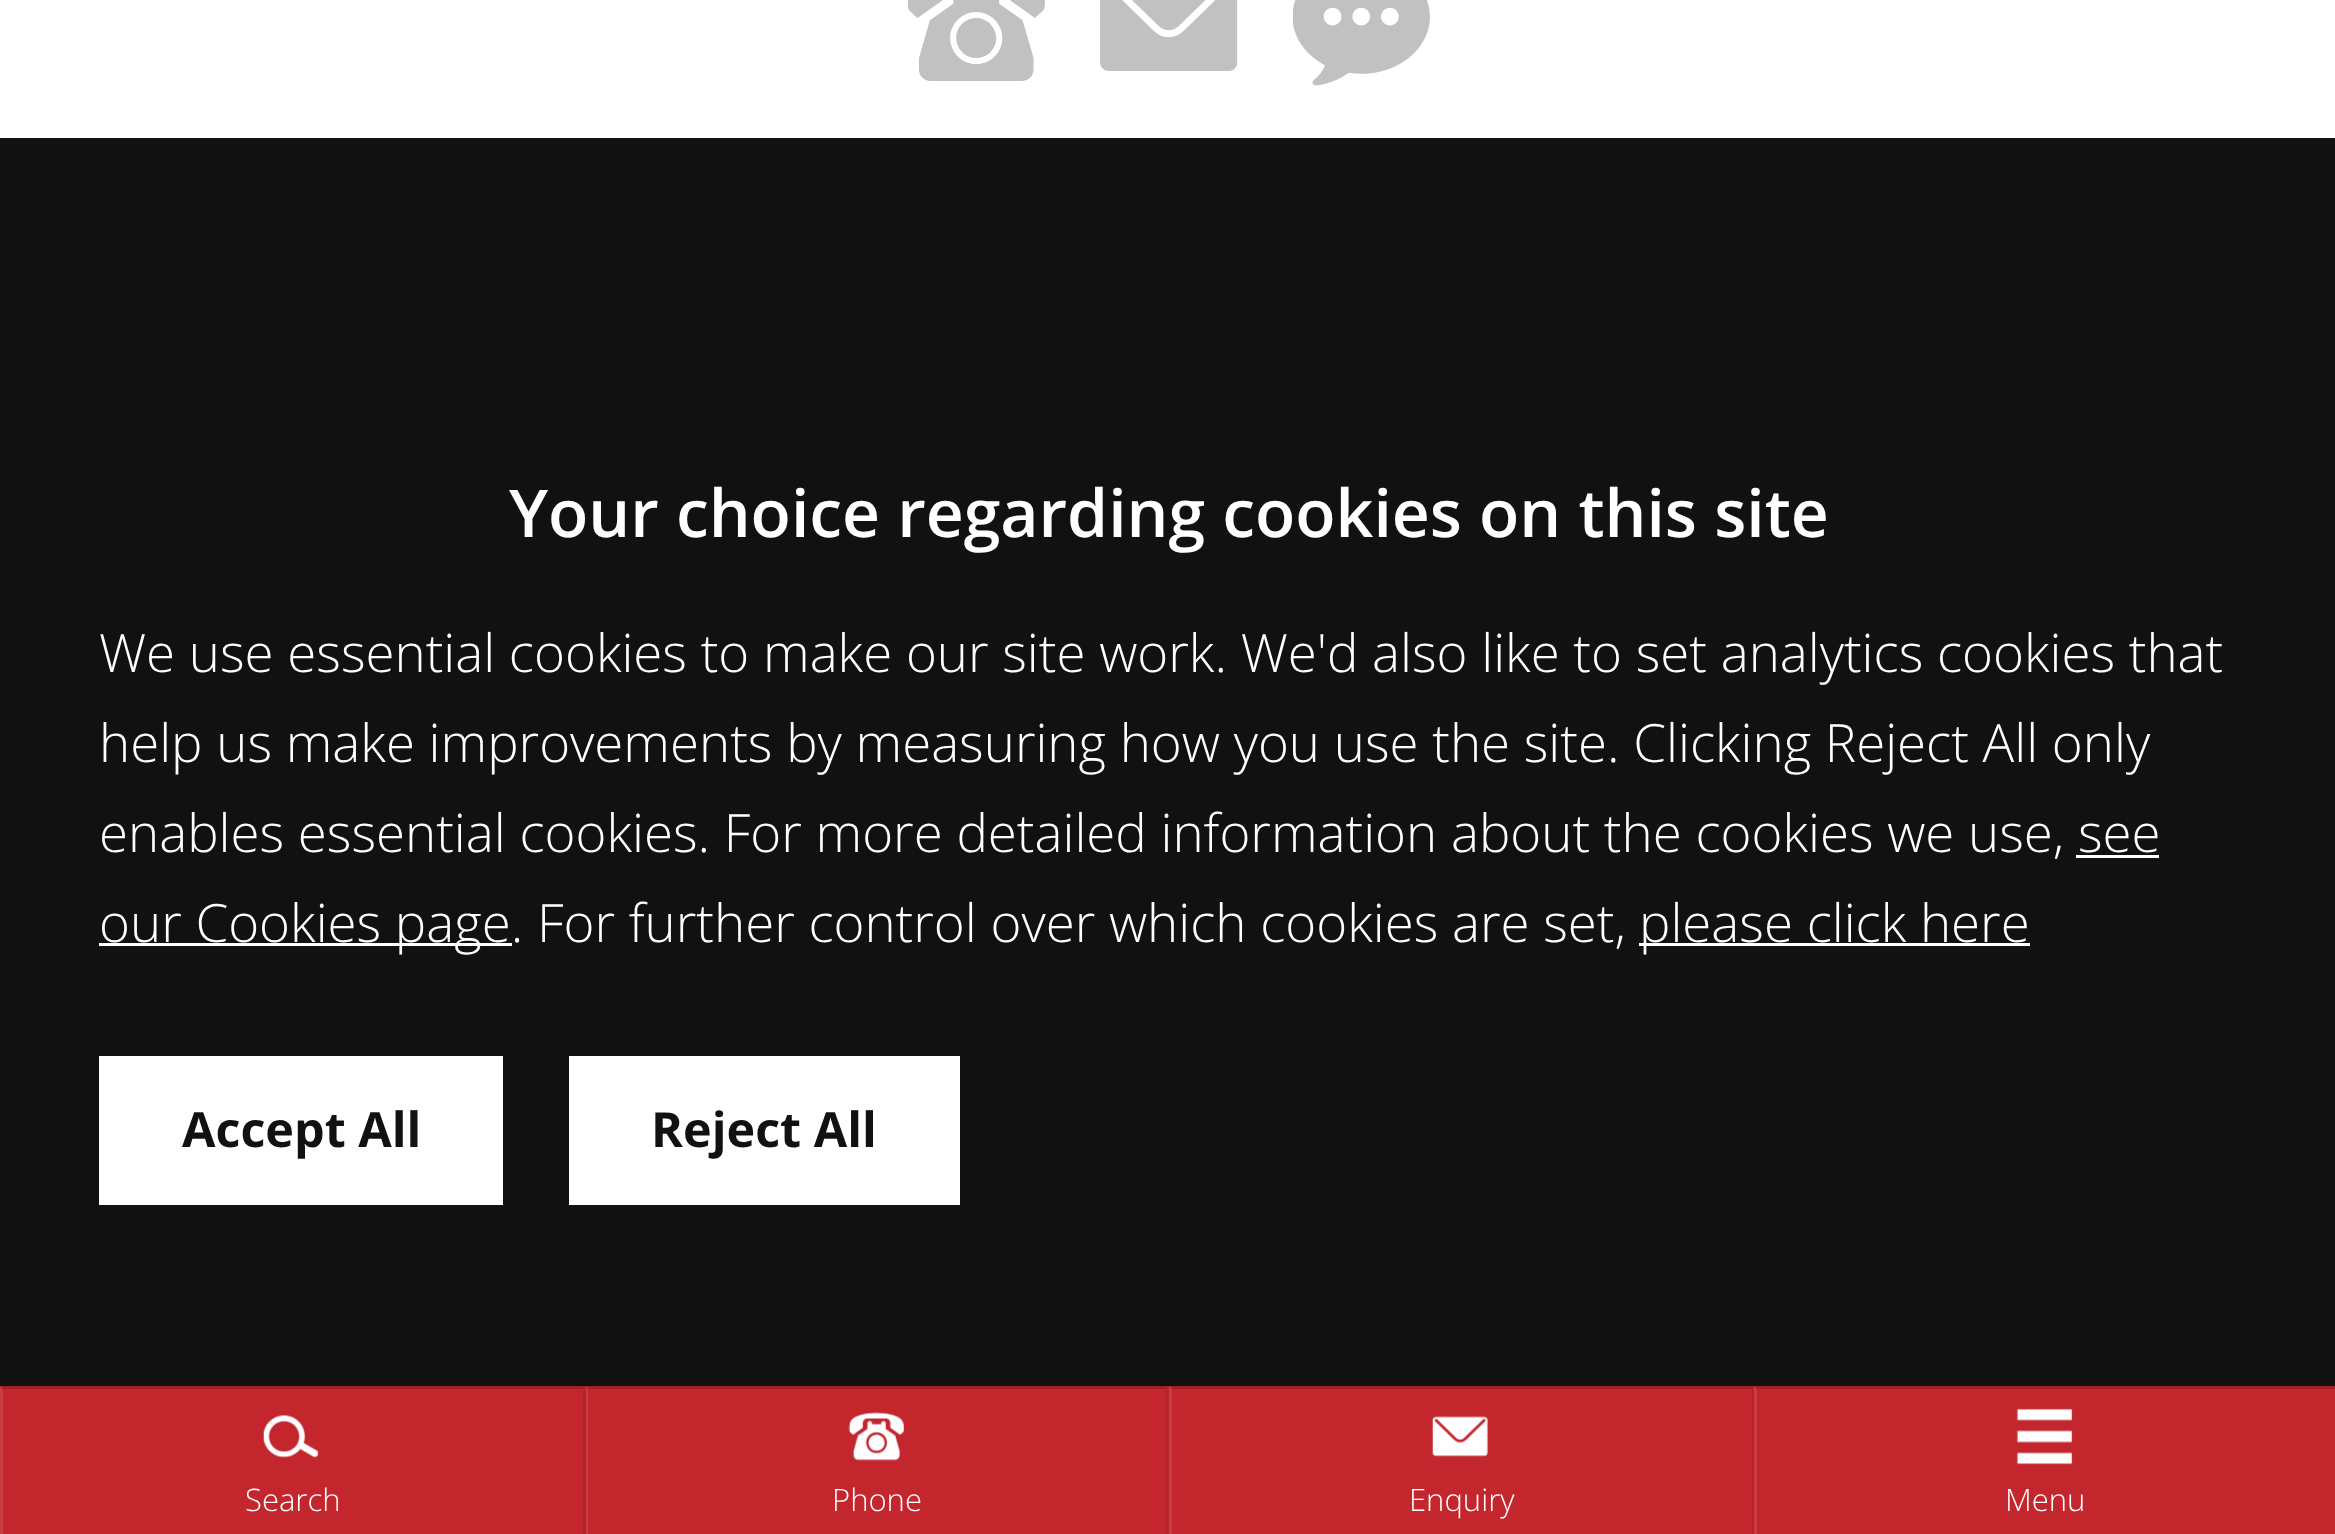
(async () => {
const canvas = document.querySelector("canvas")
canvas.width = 2335
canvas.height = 1534
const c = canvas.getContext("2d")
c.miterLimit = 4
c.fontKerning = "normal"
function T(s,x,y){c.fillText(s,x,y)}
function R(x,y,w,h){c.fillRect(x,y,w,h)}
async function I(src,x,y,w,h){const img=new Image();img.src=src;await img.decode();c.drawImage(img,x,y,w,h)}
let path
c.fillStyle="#fff"
R(0,0,2335,1534)
await I("1.png",907,0,138,81)
await I("2.png",1100,0,138,71)
await I("3.png",1292,0,138,86)
c.fillStyle="#111"
R(0,138,2335,1248)
c.font="600 66px Open Sans"
c.fillStyle="#fff"
T("Your choice regarding cookies on this site",509,537)
c.font="300 52.8px Open Sans"
T("We use essential cookies to make our site work. We'd also like to set analytics cookies that",99,672)
T("help us make improvements by measuring how you use the site. Clicking Reject All only",99,762)
T("enables essential cookies. For more detailed information about the cookies we use, see",99,852)
R(99,943,413,3)
T("our Cookies page. For further control over which cookies are set,",99,942)
R(2076,855,83,3)
R(1639,943,391,3)
T("please click here",1639,942)
R(99,1056,404,149)
c.font="bold 48.5px Open Sans"
c.fillStyle="#111"
T("Accept All",182,1147)
c.fillStyle="#fff"
R(569,1056,391,149)
c.fillStyle="#111"
T("Reject All",651,1147)
c.fillStyle="#c4262e"
R(0,1386,1755,148)
c.fillStyle="#a02228"
path = new Path2D("M0 1386h586l-3 3h-580z")
c.fill(path)
c.fillStyle="#1111111a"
path = new Path2D("M586 1386v148h-3v-145z")
c.fill(path)
c.fillStyle="#ffffff1a"
path = new Path2D("M0 1534v-148l3 3v145z")
c.fill(path)
await I("4.png",263,1415,56,43)
c.font="300 31px Open Sans"
c.fillStyle="#fff"
T("Search",245,1511)
c.fillStyle="#a02228"
path = new Path2D("M586 1386h583l-3 3h-578z")
c.fill(path)
c.fillStyle="#1111111a"
path = new Path2D("M1169 1386v148h-3v-145z")
c.fill(path)
c.fillStyle="#ffffff1a"
path = new Path2D("M586 1534v-148l2 3v145z")
c.fill(path)
await I("5.png",848,1412,57,49)
c.fillStyle="#fff"
T("Phone",832,1511)
c.fillStyle="#a02228"
path = new Path2D("M1169 1386h585l-2 3h-580z")
c.fill(path)
c.fillStyle="#1111111a"
path = new Path2D("M1754 1386v148h-2v-145z")
c.fill(path)
c.fillStyle="#ffffff1a"
path = new Path2D("M1169 1534v-148l3 3v145z")
c.fill(path)
await I("6.png",1432,1416,56,41)
c.fillStyle="#fff"
T("Enquiry",1409,1511)
c.fillStyle="#c4262e"
R(1755,1387,580,147)
c.fillStyle="#a02228"
path = new Path2D("M1754 1386h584l-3 3h-578z")
c.fill(path)
c.fillStyle="#ffffff1a"
path = new Path2D("M1754 1534v-148l3 3v145z")
c.fill(path)
await I("7.png",2016,1408,57,57)
c.fillStyle="#fff"
T("Menu",2005,1511)
})()
